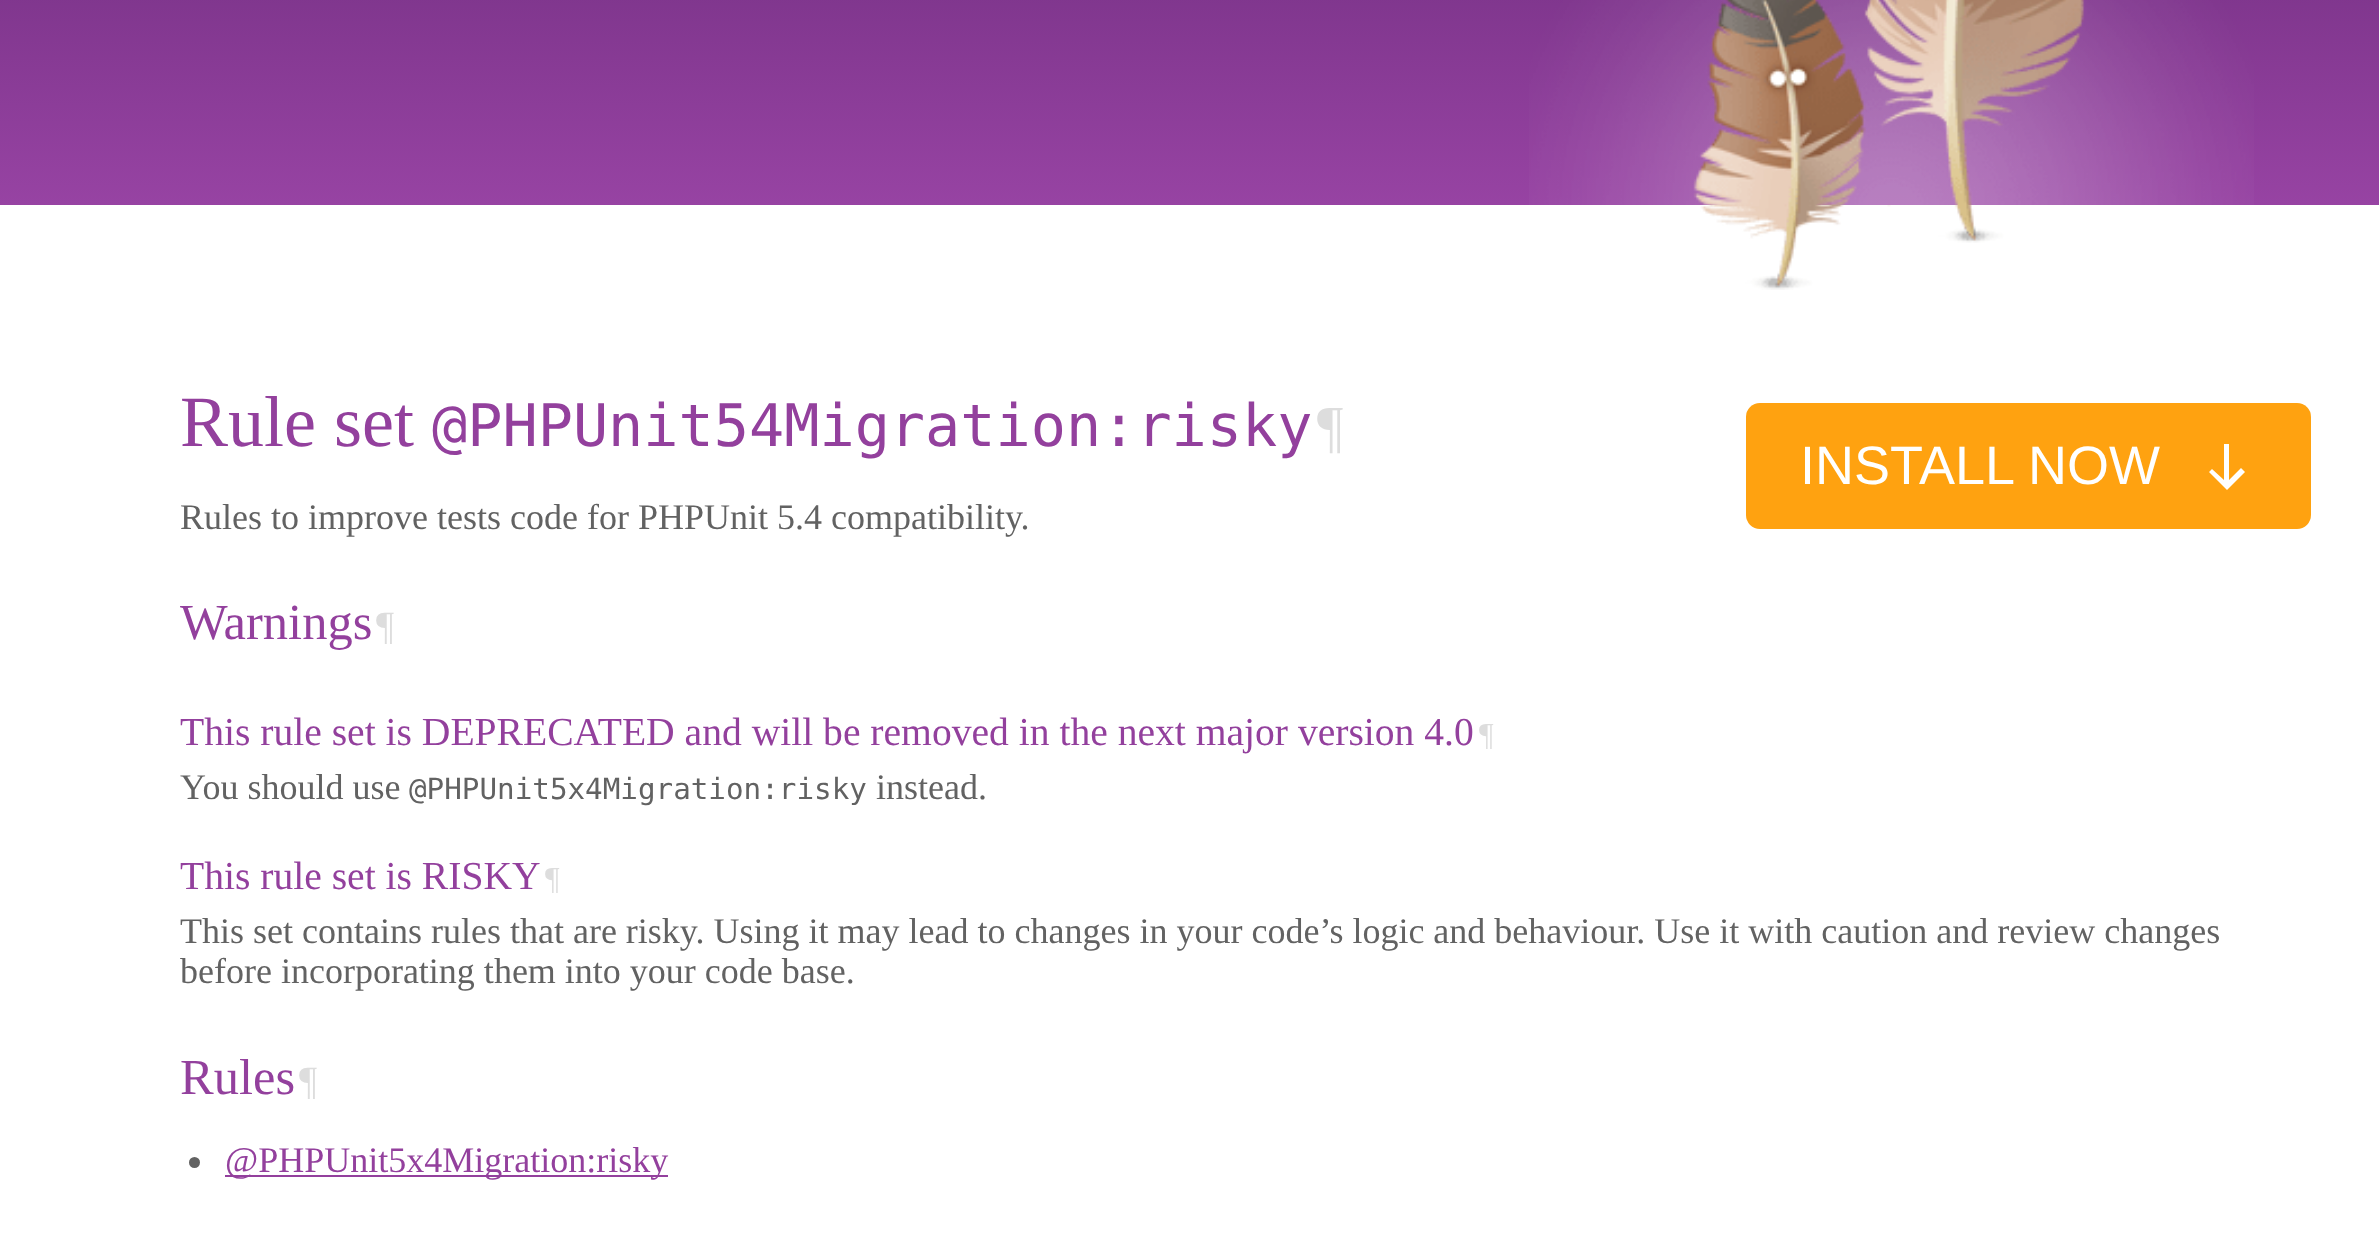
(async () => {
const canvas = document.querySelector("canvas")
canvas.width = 2379
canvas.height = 1237
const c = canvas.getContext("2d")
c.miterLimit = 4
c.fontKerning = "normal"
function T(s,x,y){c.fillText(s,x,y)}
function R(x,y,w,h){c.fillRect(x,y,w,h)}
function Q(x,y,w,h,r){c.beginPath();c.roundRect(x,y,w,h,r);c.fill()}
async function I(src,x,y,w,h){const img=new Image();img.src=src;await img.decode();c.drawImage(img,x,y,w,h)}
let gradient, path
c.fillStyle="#fff"
R(0,0,2379,1237)
gradient = c.createLinearGradient(1190,-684,1190,205)
gradient.addColorStop(.2,"#49185b")
gradient.addColorStop(1,"#9743a3")
c.fillStyle = gradient
R(0,0,2379,205)
await I("1.png",1529,0,725,290)
c.font="72px Liberation Serif"
c.fillStyle="#93409d"
T("Rule set",180,446)
c.font="58.5px DejaVu Sans Mono"
T("@PHPUnit54Migration:risky",432,446)
c.font="58px Liberation Serif"
c.fillStyle="#ddd"
T("¶",1317,446)
c.font="36px Liberation Serif"
c.fillStyle="#626262"
T("Rules to improve tests code for PHPUnit 5.4 compatibility.",180,529)
c.font="50.5px Liberation Serif"
c.fillStyle="#93409d"
T("Warnings",180,639)
c.font="40px Liberation Serif"
c.fillStyle="#ddd"
T("¶",376,639)
c.font="39.6px Liberation Serif"
c.fillStyle="#93409d"
T("This rule set is DEPRECATED and will be removed in the next major version 4.0",180,745)
c.font="32px Liberation Serif"
c.fillStyle="#ddd"
T("¶",1479,745)
c.font="36px Liberation Serif"
c.fillStyle="#626262"
T("You should use",180,799)
c.font="29.25px DejaVu Sans Mono"
T("@PHPUnit5x4Migration:risky",409,799)
c.font="36px Liberation Serif"
T("instead.",876,799)
c.font="39.6px Liberation Serif"
c.fillStyle="#93409d"
T("This rule set is RISKY",180,889)
c.font="32px Liberation Serif"
c.fillStyle="#ddd"
T("¶",545,889)
c.font="36px Liberation Serif"
c.fillStyle="#626262"
T("This set contains rules that are risky. Using it may lead to changes in your code’s logic and behaviour. Use it with caution and review changes",180,943)
T("before incorporating them into your code base.",180,983)
c.font="50.5px Liberation Serif"
c.fillStyle="#93409d"
T("Rules",180,1094)
c.font="40px Liberation Serif"
c.fillStyle="#ddd"
T("¶",299,1094)
c.fillStyle="#626262"
c.beginPath()
c.arc(194.5,1162.5,5.5,0,7)
c.fill()
c.fillStyle="#93409d"
R(225,1175,443,2)
c.font="36px Liberation Serif"
T("@PHPUnit5x4Migration:risky",225,1172)
c.fillStyle="#ffa210"
Q(1746,403,565,126,14)
c.font="54px Liberation Sans"
c.fillStyle="#fff"
T("INSTALL NOW",1800,484)
path = new Path2D("M2229 444h-5v36l-12-11l-3 3l18 18l18-18l-4-4l-12 12z")
c.fill(path)
})()
